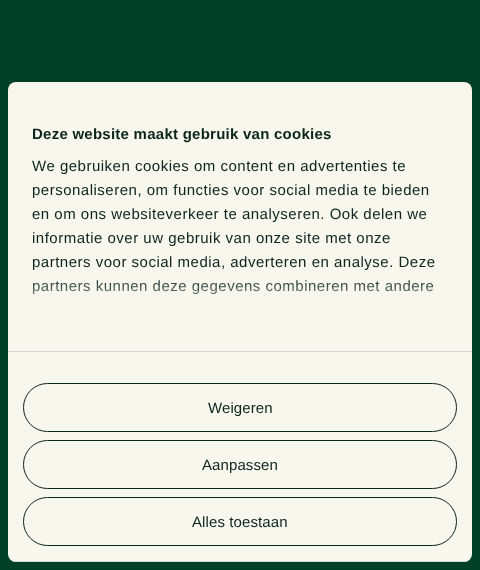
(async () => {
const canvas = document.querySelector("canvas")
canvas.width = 480
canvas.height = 570
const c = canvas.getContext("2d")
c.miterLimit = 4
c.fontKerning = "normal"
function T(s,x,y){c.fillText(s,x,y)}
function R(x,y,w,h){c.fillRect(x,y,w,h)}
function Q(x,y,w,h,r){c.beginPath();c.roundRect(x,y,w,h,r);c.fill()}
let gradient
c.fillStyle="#004028"
R(0,0,480,570)
c.fillStyle="#f7f7ee"
Q(8,82,464,480,8)
c.fillStyle="#d6d6d6"
R(8,351,464,1)
c.letterSpacing="0.25px"
c.font="bold 15px Liberation Sans"
c.fillStyle="#0c251b"
T("Deze website maakt gebruik van cookies",32,139)
c.letterSpacing="0.5px"
c.font="15px Liberation Sans"
T("We gebruiken cookies om content en advertenties te",32,171)
T("personaliseren, om functies voor social media te bieden",32,195)
T("en om ons websiteverkeer te analyseren. Ook delen we",32,219)
T("informatie over uw gebruik van onze site met onze",32,243)
T("partners voor social media, adverteren en analyse. Deze",32,267)
T("partners kunnen deze gegevens combineren met andere",32,291)
gradient = c.createLinearGradient(234,351,234,276)
gradient.addColorStop(0,"#f7f7ee")
gradient.addColorStop(.5,"#f7f7eecc")
gradient.addColorStop(1,"#f7f7ee00")
c.fillStyle = gradient
R(33,280,401,15)
c.save()
c.beginPath()
c.roundRect(8,82,464,480,8)
c.clip()
c.fillStyle="#d6d6d6"
R(8,561,464,1)
c.restore()
c.beginPath()
c.roundRect(23.5,383.5,433,48,24)
c.strokeStyle="#0c251b"
c.stroke()
c.letterSpacing="0.1px"
c.fillStyle="#0c251b"
T("Weigeren",208,413)
c.beginPath()
c.roundRect(23.5,440.5,433,48,24)
c.stroke()
T("Aanpassen",202,470)
c.beginPath()
c.roundRect(23.5,497.5,433,48,24)
c.stroke()
T("Alles toestaan",192,527)
})()
